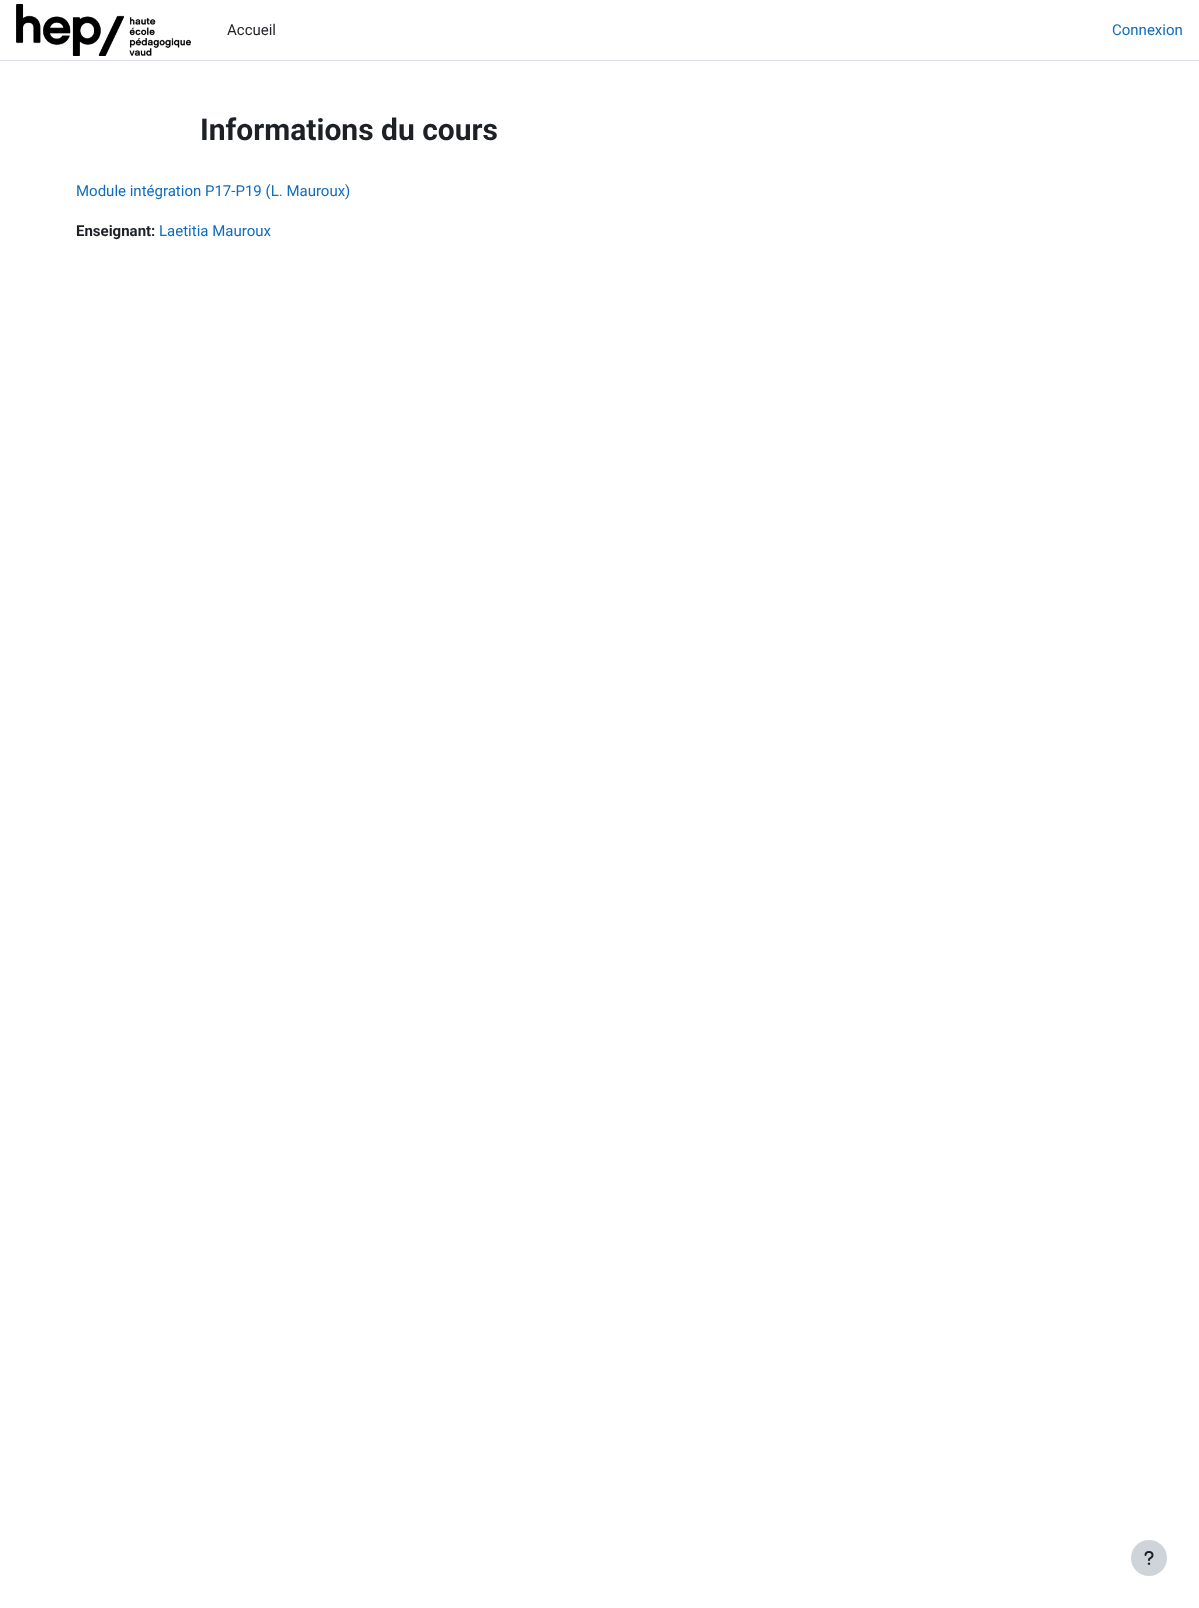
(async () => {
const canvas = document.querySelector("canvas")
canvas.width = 1199
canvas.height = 1608
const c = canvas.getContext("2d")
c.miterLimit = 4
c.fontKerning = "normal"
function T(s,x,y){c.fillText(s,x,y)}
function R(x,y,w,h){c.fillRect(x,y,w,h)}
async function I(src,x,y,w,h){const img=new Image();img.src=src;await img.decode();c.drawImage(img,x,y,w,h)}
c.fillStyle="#fff"
R(0,0,1199,1608)
c.fillStyle="#dee2e6"
R(0,60,1199,1)
await I("1.png",16,4,175,52)
c.font="15px Roboto"
c.fillStyle="#1d2125"
T("Accueil",227,35)
c.fillStyle="#0f6cbf"
T("Connexion",1112,35)
c.font="bold 30px Roboto"
c.fillStyle="#1d2125"
T("Informations du cours",200,140)
c.font="15px Roboto"
c.fillStyle="#0f6cbf"
T("Module intégration P17-P19 (L. Mauroux)",76,196)
c.font="bold 15px Roboto"
c.fillStyle="#1d2125"
T("Enseignant:",76,236)
c.font="15px Roboto"
c.fillStyle="#0f6cbf"
T("Laetitia Mauroux",159,236)
c.fillStyle="#ced4da"
c.beginPath()
c.arc(1149,1558,18,0,7)
c.fill()
await I("2.png",1144,1551,10,14)
})()
